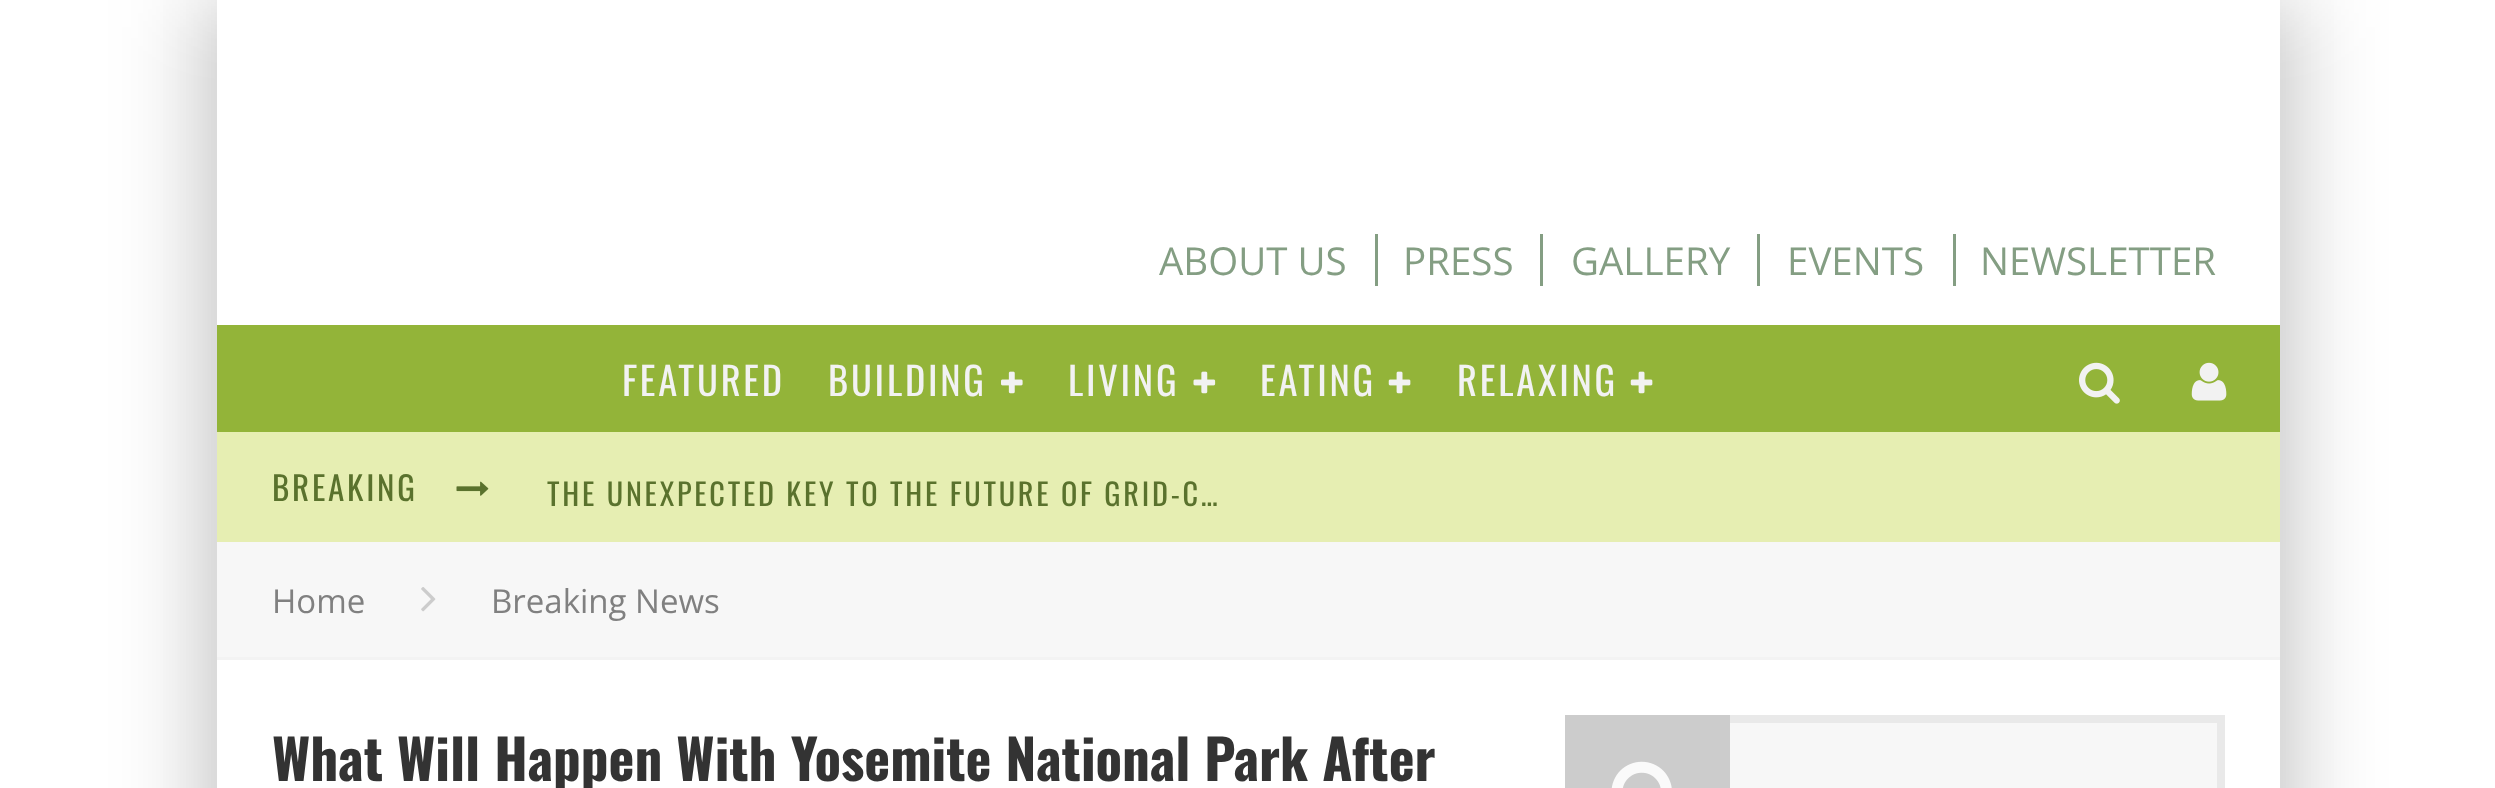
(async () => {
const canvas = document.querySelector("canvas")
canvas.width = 2495
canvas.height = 788
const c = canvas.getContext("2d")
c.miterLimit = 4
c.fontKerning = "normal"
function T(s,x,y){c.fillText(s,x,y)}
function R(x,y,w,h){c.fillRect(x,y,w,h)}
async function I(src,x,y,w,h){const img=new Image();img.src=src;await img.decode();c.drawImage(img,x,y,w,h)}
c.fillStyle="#fff"
R(0,0,2495,788)
c.fillStyle="#00000026"
c.filter="blur(41px)"
c.beginPath()
c.rect(190,0,2062,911)
c.fill()
c.filter="none"
c.filter="blur(41px)"
c.beginPath()
c.rect(245,0,2062,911)
c.fill()
c.filter="none"
c.fillStyle="#fff"
R(217,0,2063,325)
c.font="38.5px Open Sans"
c.fillStyle="#849e83"
T("ABOUT US",1159,275)
R(1375,234,3,52)
T("PRESS",1403,275)
R(1540,234,3,52)
T("GALLERY",1571,275)
R(1757,234,3,52)
T("EVENTS",1787,275)
R(1953,234,3,52)
T("NEWSLETTER",1980,275)
c.fillStyle="#93b439"
R(217,325,2063,107)
c.letterSpacing="2.75px"
c.font="38.5px Oswald"
c.fillStyle="#f2f2f2"
T("FEATURED",622,396)
T("BUILDING",828,396)
await I("1.png",1001,371,22,23)
T("LIVING",1068,396)
await I("2.png",1193,371,23,23)
T("EATING",1260,396)
await I("3.png",1388,371,23,23)
T("RELAXING",1457,396)
await I("3.png",1630,371,23,23)
await I("4.png",2079,362,41,42)
await I("5.png",2191,362,36,39)
c.fillStyle="#e6eeb2"
R(217,432,2063,110)
c.font="33px Oswald"
c.fillStyle="#5a722d"
T("BREAKING",272,501)
await I("6.png",456,481,33,15)
c.font="30.25px Oswald"
T("THE UNEXPECTED KEY TO THE FUTURE OF GRID-C…",547,506)
c.fillStyle="#fff"
R(217,660,2063,128)
c.fillStyle="#f7f7f7"
R(217,542,2063,115)
c.fillStyle="#f3f3f3"
R(217,657,2063,3)
c.letterSpacing="0px"
c.font="33px Open Sans"
c.fillStyle="#808080"
T("Home",272,613)
await I("7.png",421,587,15,25)
T("Breaking News",491,613)
c.font="bold 55px Oswald"
c.fillStyle="#333"
T("What Will Happen With Yosemite National Park After",272,781)
c.fillStyle="#f7f7f7"
R(1730,723,487,65)
c.strokeStyle="#e9e9e9"
c.lineWidth=8
c.strokeRect(1569,719,652,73)
c.fillStyle="#ccc"
R(1565,715,165,73)
await I("8.png",1611,761,61,27)
})()
